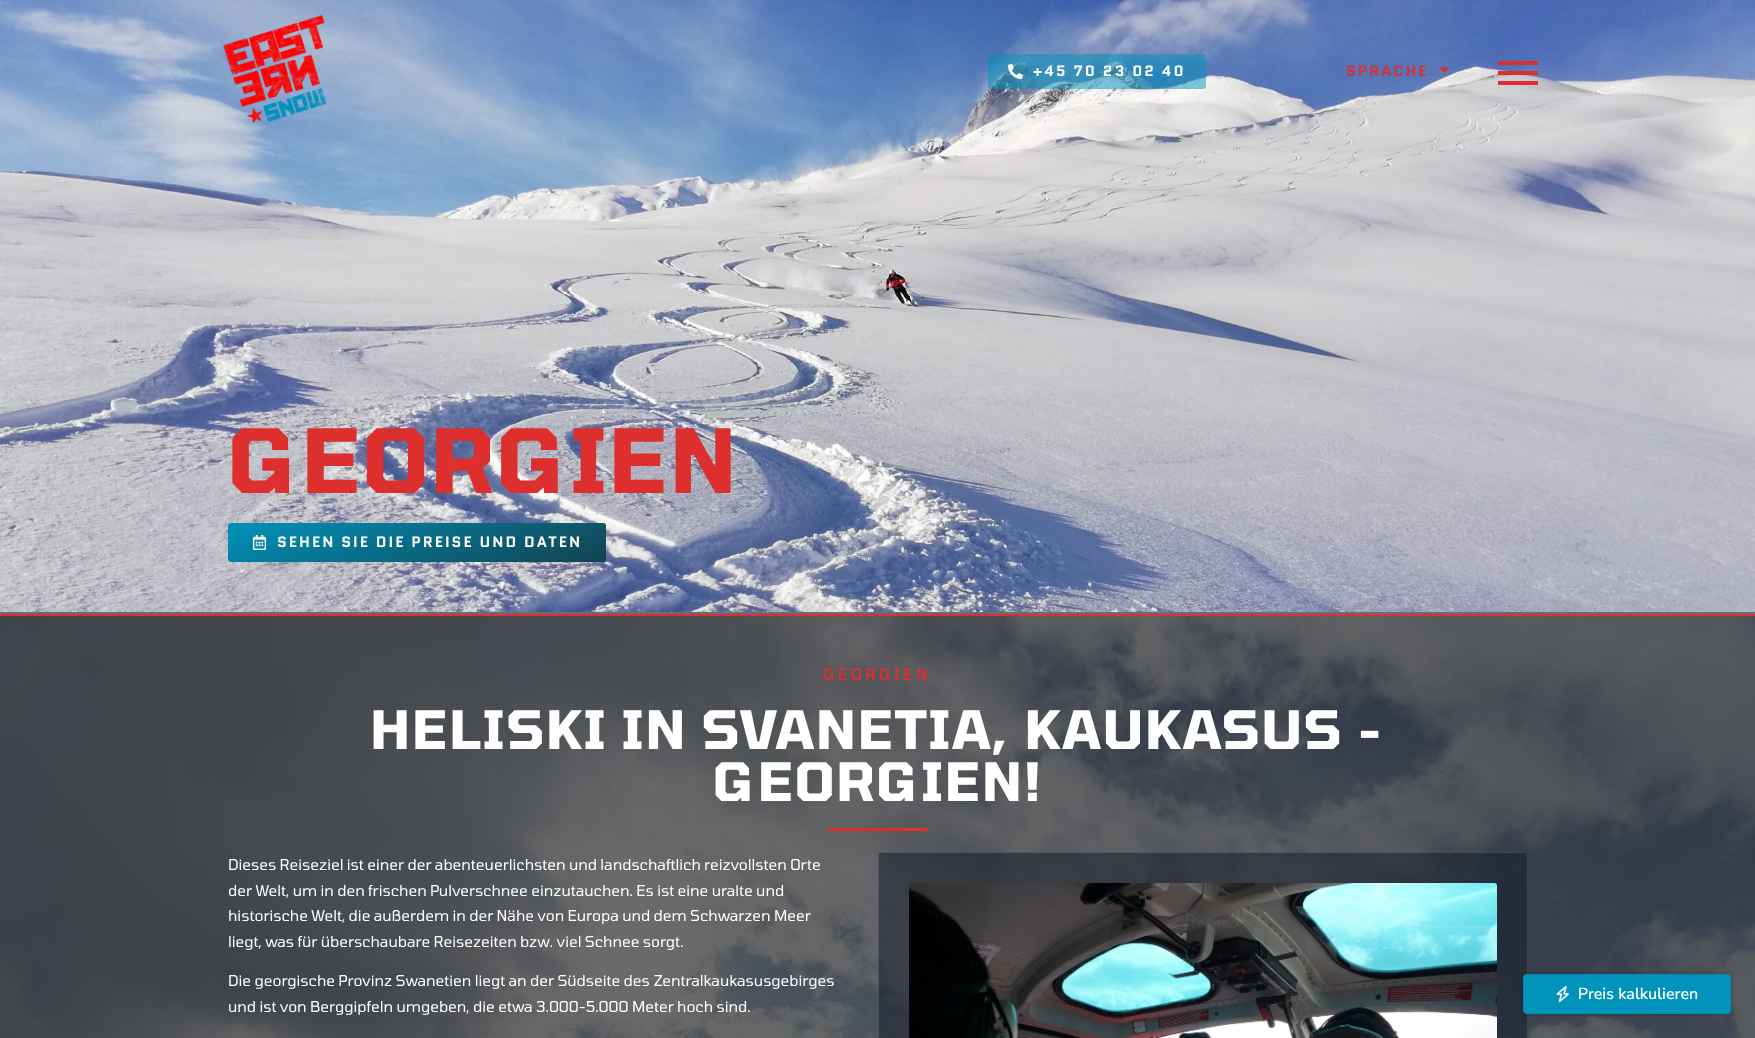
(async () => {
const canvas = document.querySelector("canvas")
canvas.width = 1755
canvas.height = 1038
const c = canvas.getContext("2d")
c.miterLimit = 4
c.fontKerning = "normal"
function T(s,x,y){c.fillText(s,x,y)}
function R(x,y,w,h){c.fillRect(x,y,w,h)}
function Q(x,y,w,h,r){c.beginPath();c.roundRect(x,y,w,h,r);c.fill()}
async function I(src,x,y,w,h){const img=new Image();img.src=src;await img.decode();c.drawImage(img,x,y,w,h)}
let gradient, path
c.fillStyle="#272a2c"
R(0,0,1755,1038)
await I("3.png",0,0,1755,612)
await I("1.png",223,14,104,110)
c.fillStyle="#0093bb80"
Q(988,54,218,35,3)
await I("2.png",1008,64,15,15)
c.letterSpacing="2px"
c.font="bold 15px Quantico"
c.fillStyle="#fff"
T("+45 70 23 02 40",1033,76)
c.fillStyle="#de2f2f"
T("SPRACHE",1346,76)
path = new Path2D("M1439 67.5h11l-5.5 5.5z")
c.fill(path)
R(1498,61,40,4)
R(1498,71,40,4)
R(1498,81,40,4)
c.fillStyle="#696d7b"
R(0,612,1755,2)
c.letterSpacing="1.5px"
c.font="bold 87.75px Tomorrow"
c.fillStyle="#de2f2f"
T("GEORGIEN",228,493)
gradient = c.createLinearGradient(389,465,445,620)
gradient.addColorStop(0,"#0093bb")
gradient.addColorStop(1,"#12424f")
c.fillStyle = gradient
Q(228,523,378,39,3)
await I("4.png",252,535,15,15)
c.letterSpacing="2px"
c.font="bold 15px Quantico"
c.fillStyle="#fff"
T("SEHEN SIE DIE PREISE UND DATEN",277,547)
c.fillStyle="#de2f2f"
R(0,614,1755,2)
await I("5.png",0,616,1755,422)
c.letterSpacing="3px"
c.font="500 16px Tomorrow"
T("GEORGIEN",823,680)
c.letterSpacing="1.5px"
c.font="bold 52.6px Tomorrow"
c.fillStyle="#fff"
T("HELISKI IN SVANETIA, KAUKASUS -",370,749)
T("GEORGIEN!",713,801)
c.fillStyle="#de2f2f"
R(828,828,100,3)
c.letterSpacing="0px"
c.font="15px Tomorrow"
c.fillStyle="#fff"
T("Dieses Reiseziel ist einer der abenteuerlichsten und landschaftlich reizvollsten Orte",228,870)
T("der Welt, um in den frischen Pulverschnee einzutauchen. Es ist eine uralte und",228,896)
T("historische Welt, die außerdem in der Nähe von Europa und dem Schwarzen Meer",228,921)
T("liegt, was für überschaubare Reisezeiten bzw. viel Schnee sorgt.",228,947)
T("Die georgische Provinz Swanetien liegt an der Südseite des Zentralkaukasusgebirges",228,986)
T("und ist von Berggipfeln umgeben, die etwa 3.000-5.000 Meter hoch sind.",228,1012)
c.fillStyle="#11192880"
Q(878,852,650,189,3)
c.beginPath()
c.roundRect(878.5,852.5,649,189,2.5)
c.strokeStyle="#ffffff1f"
c.stroke()
await I("6.png",909,883,588,155)
await I("7.png",1521,971,213,46)
})()
